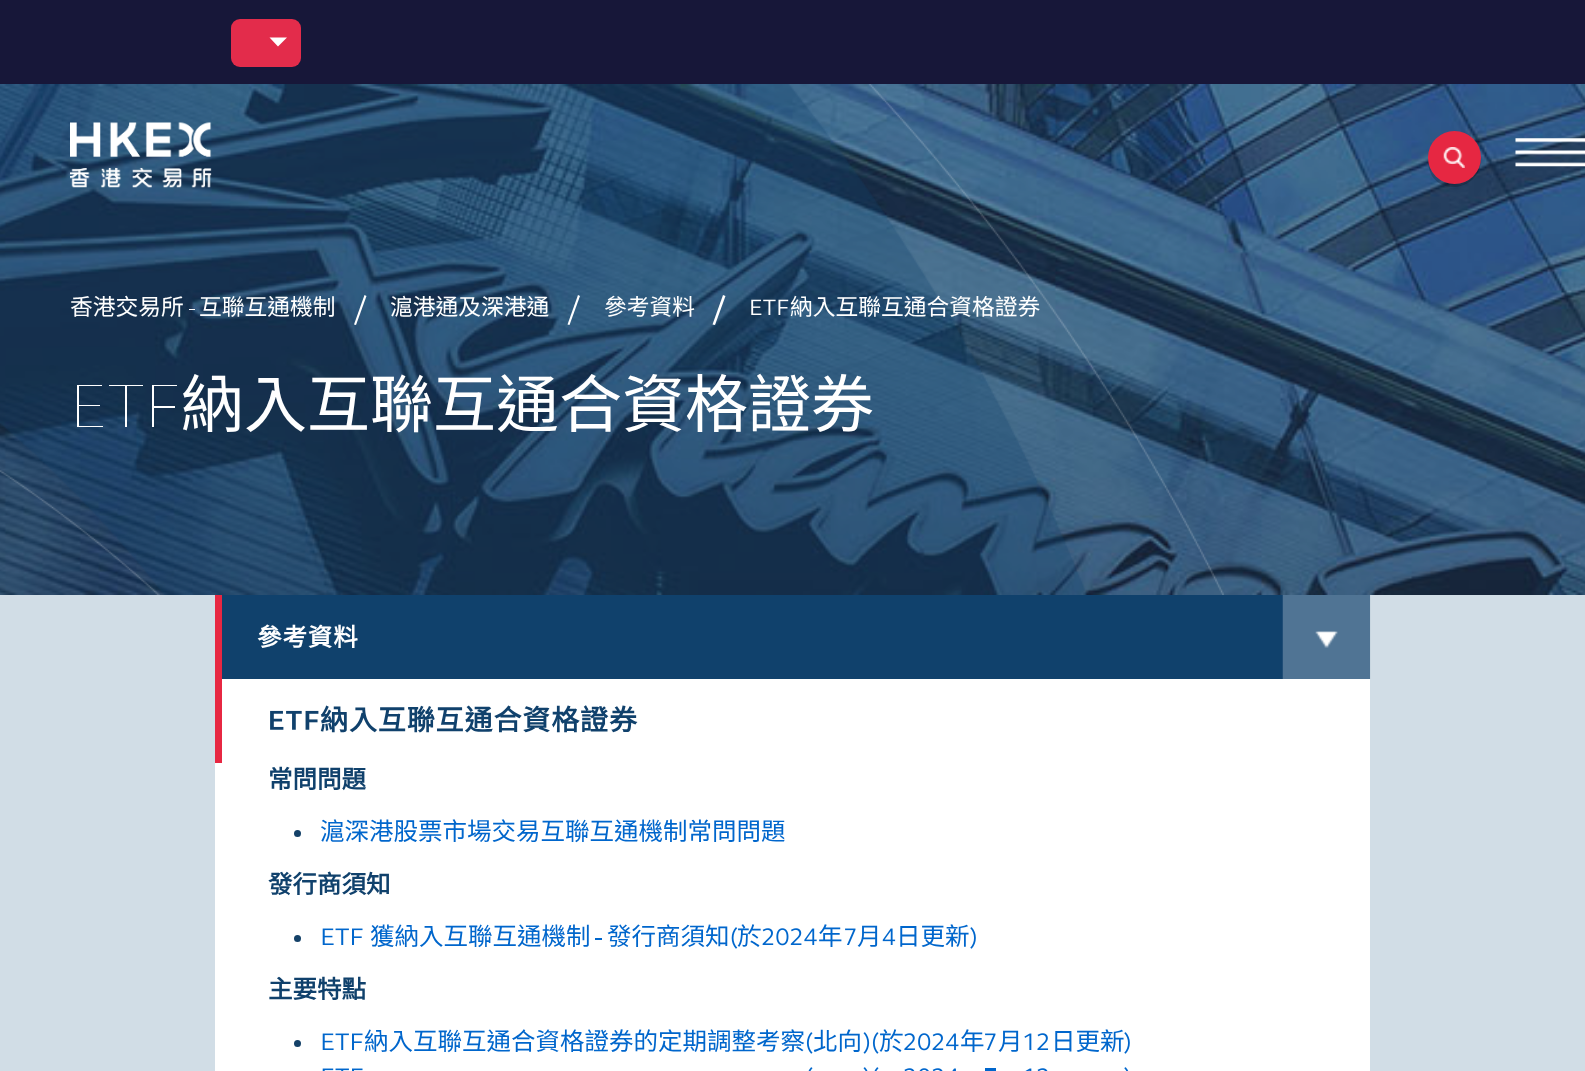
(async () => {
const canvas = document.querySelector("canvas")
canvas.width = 1585
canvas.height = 1071
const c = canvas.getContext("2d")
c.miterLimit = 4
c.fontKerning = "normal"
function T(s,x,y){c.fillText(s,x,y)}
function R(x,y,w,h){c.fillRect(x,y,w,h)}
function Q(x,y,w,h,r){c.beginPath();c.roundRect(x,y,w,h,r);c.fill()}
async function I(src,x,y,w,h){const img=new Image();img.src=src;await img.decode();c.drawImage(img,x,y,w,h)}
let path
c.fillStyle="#d1dde6"
R(0,0,1585,1071)
c.fillStyle="#171739"
R(0,0,1585,84)
c.fillStyle="#e32c4b"
Q(231,19,70,48,9)
c.fillStyle="#fff"
path = new Path2D("M269.5 37.5h17.5l-9 9z")
c.fill(path)
await I("4.png",0,84,1585,511)
await I("5.png",0,84,1087,511)
await I("1.png",70,122,142,66)
c.fillStyle="#00000033"
path = new Path2D("M1428 159c0 6 1 12 4 17c16 23 54 7 48-20c1 5-1 11-4 16c-14 21-46 12-48-13z")
c.fill(path)
c.fillStyle="#e62742"
c.beginPath()
c.arc(1454.5,157.5,26.5,0,7)
c.fill()
await I("2.png",1443,147,22,21)
await I("3.png",1515,138,70,29)
await I("6.png",0,470,160,125)
await I("7.png",868,84,356,511)
c.font="22.75px Noto Sans CJK HK"
c.fillStyle="#fff"
T("香港交易所",70,315)
T("互聯互通機制",199,315)
R(189,309,6,1)
path = new Path2D("M354 324.5l2 .5l10.5-29l-2-1z")
c.fill(path)
T("滬港通及深港通",390,315)
path = new Path2D("M567.5 324.5l2 .5l10.5-29l-2-1z")
c.fill(path)
T("參考資料",604,315)
path = new Path2D("M712.5 324.5l2.5 .5l10.5-29l-2.5-1z")
c.fill(path)
await I("8.png",751,299,38,16)
T("納入互聯互通合資格證券",790,315)
c.font="63px Noto Sans CJK HK"
T("納入互聯互通合資格證券",181,427)
path = new Path2D("M77 427h26v-1h-24v-20h21v-1h-21v-19h23v-1h-25zm48 0h2v-41h16v-1h-34v1h16zm27 0h2v-19h21v-2h-21v-20h23v-1h-25z")
c.fill(path)
c.fillStyle="#10416c"
R(222,595,1061,84)
c.letterSpacing="0.9px"
c.font="bold 24.5px Noto Sans CJK HK"
c.fillStyle="#fff"
T("參考資料",257,646)
await I("9.png",1282,595,89,84)
R(222,679,1148,84)
c.fillStyle="#e72742"
R(215,595,7,168)
await I("10.png",270,710,49,20)
c.font="bold 28px Noto Sans CJK HK"
c.fillStyle="#10416c"
T("納入互聯互通合資格證券",320,730)
c.fillStyle="#fff"
R(215,763,1155,308)
c.letterSpacing="0px"
c.font="bold 24.5px Noto Sans CJK HK"
c.fillStyle="#10416c"
T("常問問題",268,788)
c.fillStyle="#144168"
c.beginPath()
c.arc(297.5,833.5,3.5,0,7)
c.fill()
c.font="24.5px Noto Sans CJK HK"
c.fillStyle="#06c"
T("滬深港股票市場交易互聯互通機制常問問題",320,840)
c.font="bold 24.5px Noto Sans CJK HK"
c.fillStyle="#10416c"
T("發行商須知",268,893)
c.fillStyle="#144168"
c.beginPath()
c.arc(297.5,938.5,3.5,0,7)
c.fill()
await I("11.png",322,928,41,17)
c.font="24.5px Noto Sans CJK HK"
c.fillStyle="#06c"
T("獲納入互聯互通機制",370,945)
T("發行商須知",607,945)
R(595,938,7,2)
await I("12.png",731,927,7,22)
T("於",737,945)
await I("13.png",762,928,55,18)
T("年",818,945)
await I("14.png",845,928,11,17)
T("月",857,945)
await I("15.png",882,928,14,17)
T("日更新",896,945)
await I("16.png",970,927,6,22)
c.font="bold 24.5px Noto Sans CJK HK"
c.fillStyle="#10416c"
T("主要特點",268,998)
c.fillStyle="#144168"
c.beginPath()
c.arc(297.5,1043.5,3.5,0,7)
c.fill()
await I("11.png",322,1033,41,17)
c.font="24.5px Noto Sans CJK HK"
c.fillStyle="#06c"
T("納入互聯互通合資格證券的定期調整考察",364,1050)
await I("17.png",806,1032,7,22)
T("北向",813,1050)
await I("18.png",863,1032,16,22)
T("於",879,1050)
await I("19.png",904,1033,55,18)
T("年",960,1050)
await I("14.png",985,1033,11,17)
T("月",998,1050)
await I("20.png",1024,1033,25,17)
T("日更新",1051,1050)
await I("16.png",1124,1032,6,22)
await I("21.png",322,1068,41,3)
await I("22.png",808,1067,5,4)
await I("23.png",863,1067,16,4)
await I("24.png",904,1068,52,3)
R(985,1068,11,3)
await I("25.png",1025,1068,23,3)
await I("26.png",1124,1067,5,4)
})()
